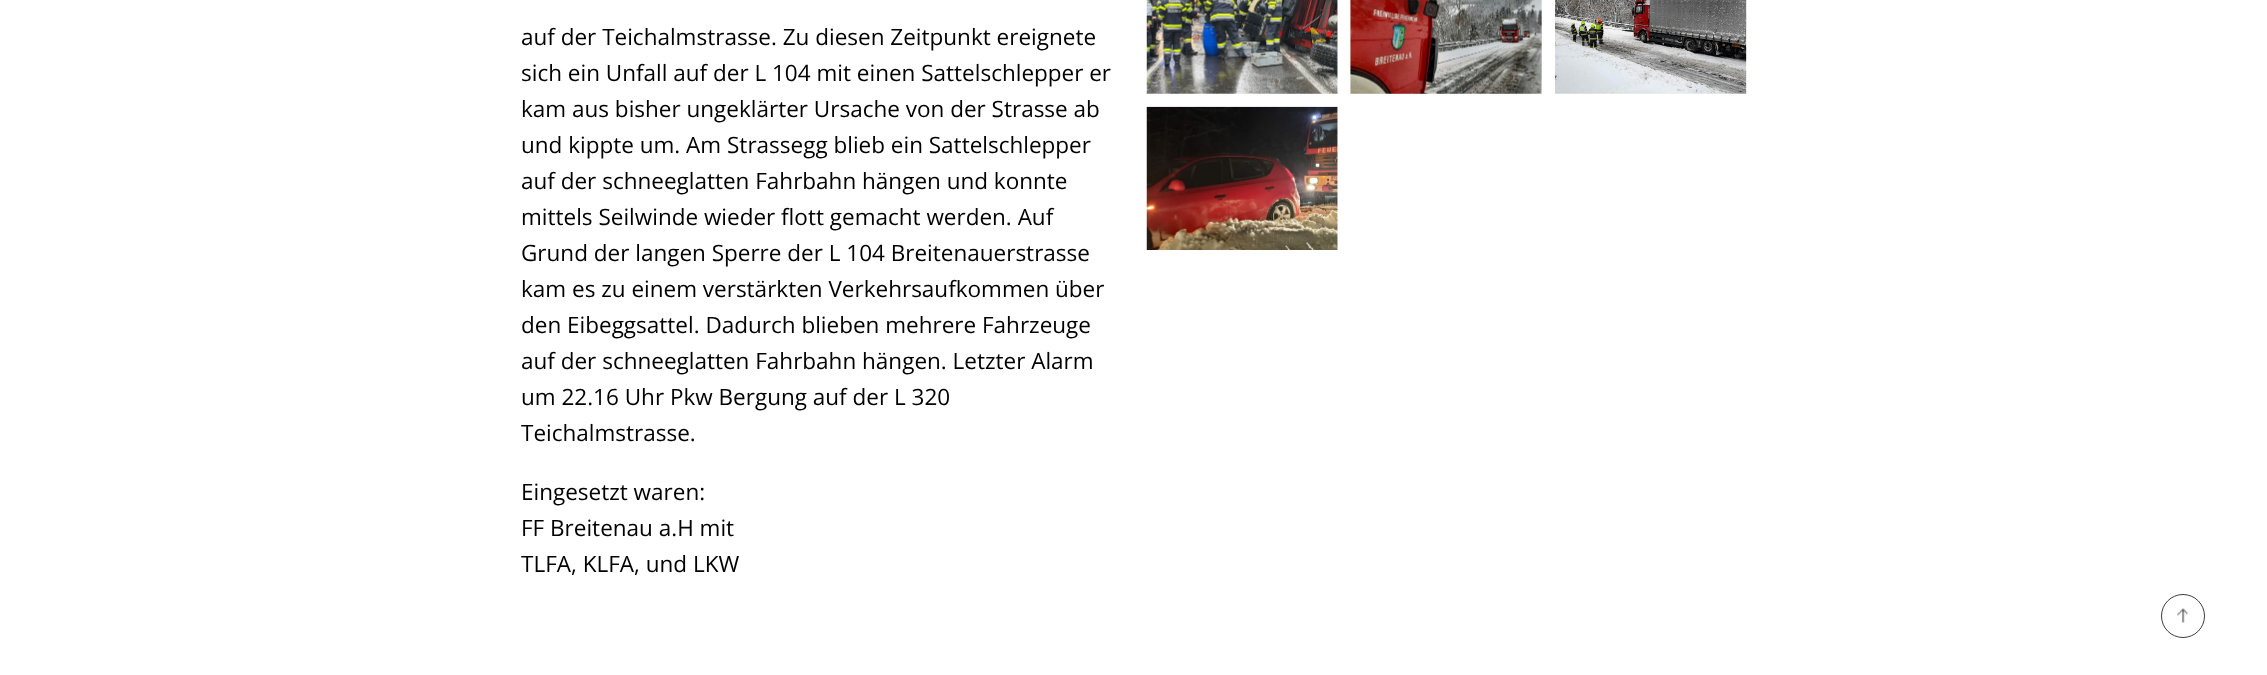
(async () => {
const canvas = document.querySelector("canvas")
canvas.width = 2267
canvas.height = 675
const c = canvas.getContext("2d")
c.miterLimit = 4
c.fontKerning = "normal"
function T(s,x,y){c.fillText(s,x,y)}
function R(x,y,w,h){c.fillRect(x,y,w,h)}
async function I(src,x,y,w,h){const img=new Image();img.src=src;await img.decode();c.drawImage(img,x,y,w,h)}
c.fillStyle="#fff"
R(0,0,2267,675)
c.font="22.5px Open Sans"
c.fillStyle="#000"
T("auf der Teichalmstrasse. Zu diesen Zeitpunkt ereignete",521,45)
T("sich ein Unfall auf der L 104 mit einen Sattelschlepper er",521,81)
T("kam aus bisher ungeklärter Ursache von der Strasse ab",521,117)
T("und kippte um. Am Strassegg blieb ein Sattelschlepper",521,153)
T("auf der schneeglatten Fahrbahn hängen und konnte",521,189)
T("mittels Seilwinde wieder flott gemacht werden. Auf",521,225)
T("Grund der langen Sperre der L 104 Breitenauerstrasse",521,261)
T("kam es zu einem verstärkten Verkehrsaufkommen über",521,297)
T("den Eibeggsattel. Dadurch blieben mehrere Fahrzeuge",521,333)
T("auf der schneeglatten Fahrbahn hängen. Letzter Alarm",521,369)
T("um 22.16 Uhr Pkw Bergung auf der L 320",521,405)
T("Teichalmstrasse.",521,441)
T("Eingesetzt waren:",521,500)
T("FF Breitenau a.H mit",521,536)
T("TLFA, KLFA, und LKW",521,572)
await I("1.png",1146,0,192,94)
await I("2.png",1350,0,192,94)
await I("3.png",1555,0,192,94)
await I("4.png",1146,106,192,144)
c.beginPath()
c.arc(2183,616,21.5,0,7)
c.strokeStyle="#3d3d3d"
c.stroke()
await I("5.png",2177,608,12,15)
})()
